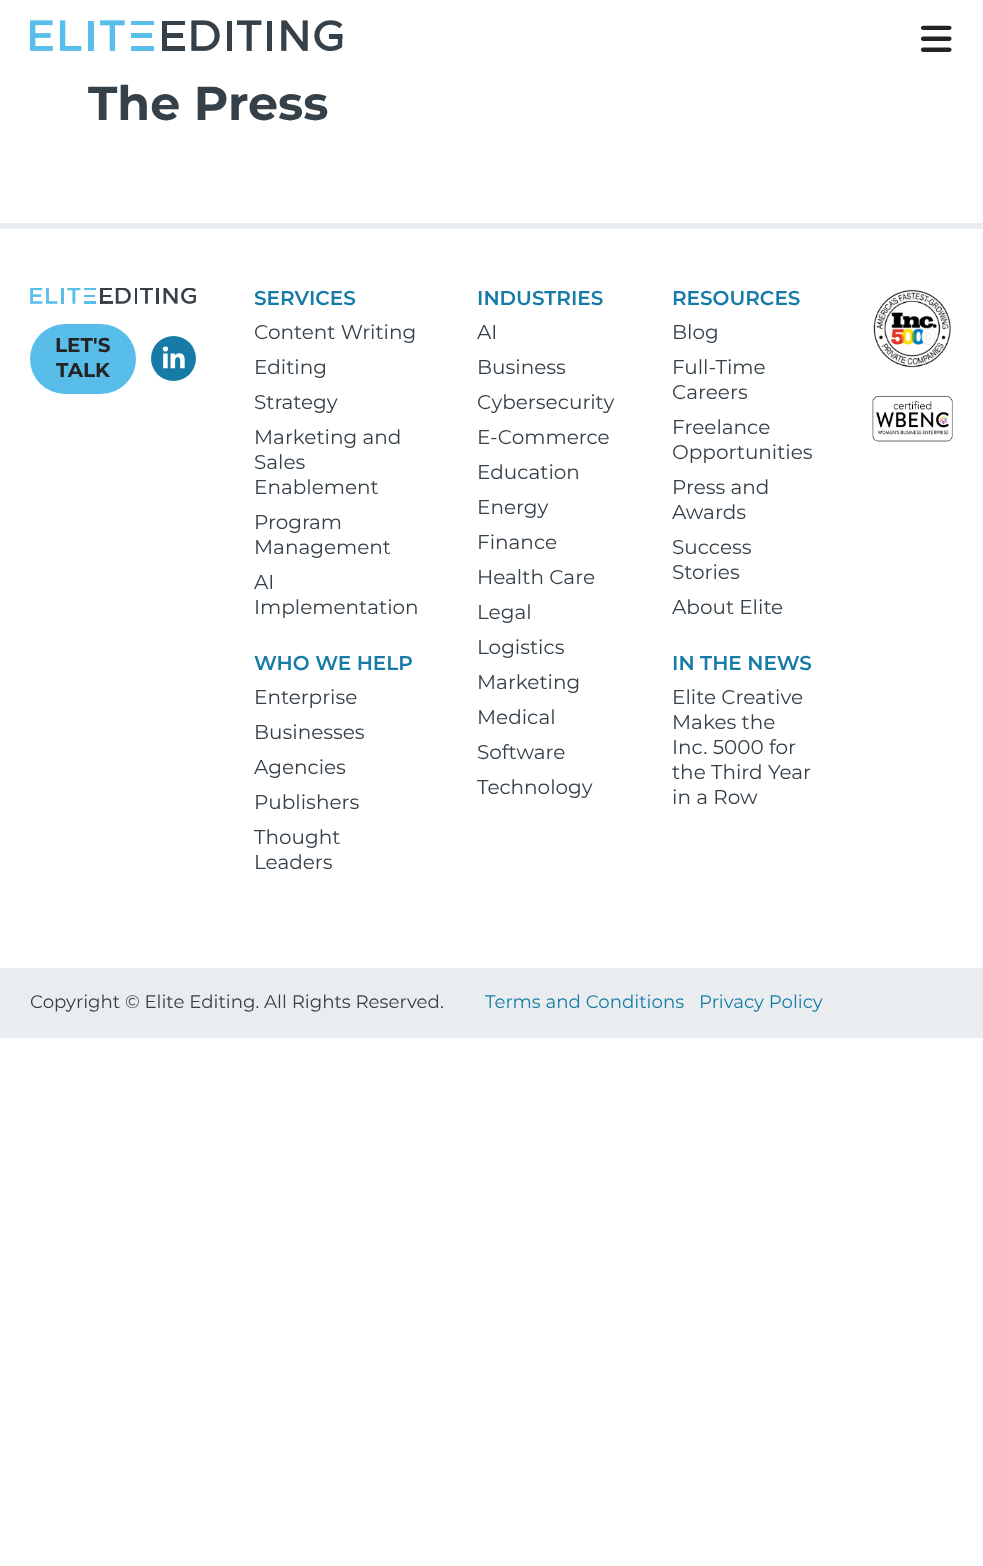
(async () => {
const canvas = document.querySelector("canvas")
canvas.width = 983
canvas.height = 1566
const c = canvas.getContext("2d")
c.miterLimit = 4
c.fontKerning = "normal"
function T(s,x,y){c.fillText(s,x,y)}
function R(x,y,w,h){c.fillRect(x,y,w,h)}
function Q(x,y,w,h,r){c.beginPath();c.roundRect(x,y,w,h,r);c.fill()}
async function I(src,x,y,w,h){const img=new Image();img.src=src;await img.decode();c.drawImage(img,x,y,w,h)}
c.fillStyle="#fff"
R(0,0,983,1566)
await I("1.png",30,20,313,31)
await I("2.png",921,25,31,27)
c.font="100 47.5px Montserrat"
c.fillStyle="#354048"
T("The Press",88,120)
c.fillStyle="#e9edf0"
R(0,223,983,6)
await I("3.png",30,288,166,16)
c.fillStyle="#58bee9"
Q(30,324,106,70,35)
c.font="100 20px Montserrat"
c.fillStyle="#242424"
T("LET'S",55,352)
T("TALK",56,377)
c.fillStyle="#167ba7"
c.beginPath()
c.arc(173.5,358.5,22.5,0,7)
c.fill()
await I("4.png",162,346,23,23)
c.font="100 20px 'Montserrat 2'"
T("SERVICES",254,305)
c.font="100 20px 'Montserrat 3'"
c.fillStyle="#354048"
T("Content Writing",254,339)
T("Editing",254,374)
T("Strategy",254,409)
T("Marketing and",254,444)
T("Sales",254,469)
T("Enablement",254,494)
T("Program",254,529)
T("Management",254,554)
T("AI",254,589)
T("Implementation",254,614)
c.font="100 20px 'Montserrat 2'"
c.fillStyle="#167ba7"
T("WHO WE HELP",254,670)
c.font="100 20px 'Montserrat 3'"
c.fillStyle="#354048"
T("Enterprise",254,704)
T("Businesses",254,739)
T("Agencies",254,774)
T("Publishers",254,809)
T("Thought",254,844)
T("Leaders",254,869)
c.font="100 20px 'Montserrat 2'"
c.fillStyle="#167ba7"
T("INDUSTRIES",477,305)
c.font="100 20px 'Montserrat 3'"
c.fillStyle="#354048"
T("AI",477,339)
T("Business",477,374)
T("Cybersecurity",477,409)
T("E-Commerce",477,444)
T("Education",477,479)
T("Energy",477,514)
T("Finance",477,549)
T("Health Care",477,584)
T("Legal",477,619)
T("Logistics",477,654)
T("Marketing",477,689)
T("Medical",477,724)
T("Software",477,759)
T("Technology",477,794)
c.font="100 20px 'Montserrat 2'"
c.fillStyle="#167ba7"
T("RESOURCES",672,305)
c.font="100 20px 'Montserrat 3'"
c.fillStyle="#354048"
T("Blog",672,339)
T("Full-Time",672,374)
T("Careers",672,399)
T("Freelance",672,434)
T("Opportunities",672,459)
T("Press and",672,494)
T("Awards",672,519)
T("Success",672,554)
T("Stories",672,579)
T("About Elite",672,614)
c.font="100 20px 'Montserrat 2'"
c.fillStyle="#167ba7"
T("IN THE NEWS",672,670)
c.font="100 20px 'Montserrat 3'"
c.fillStyle="#354048"
T("Elite Creative",672,704)
T("Makes the",672,729)
T("Inc. 5000 for",672,754)
T("the Third Year",672,779)
T("in a Row",672,804)
await I("5.png",873,289,78,79)
await I("6.png",872,395,81,47)
c.fillStyle="#e9edf0"
R(0,968,983,70)
c.font="100 18.2px 'Montserrat 3'"
c.fillStyle="#354048"
T("Copyright © Elite Editing. All Rights Reserved.",30,1008)
c.fillStyle="#167ba7"
T("Terms and Conditions",485,1008)
T("Privacy Policy",699,1008)
})()
